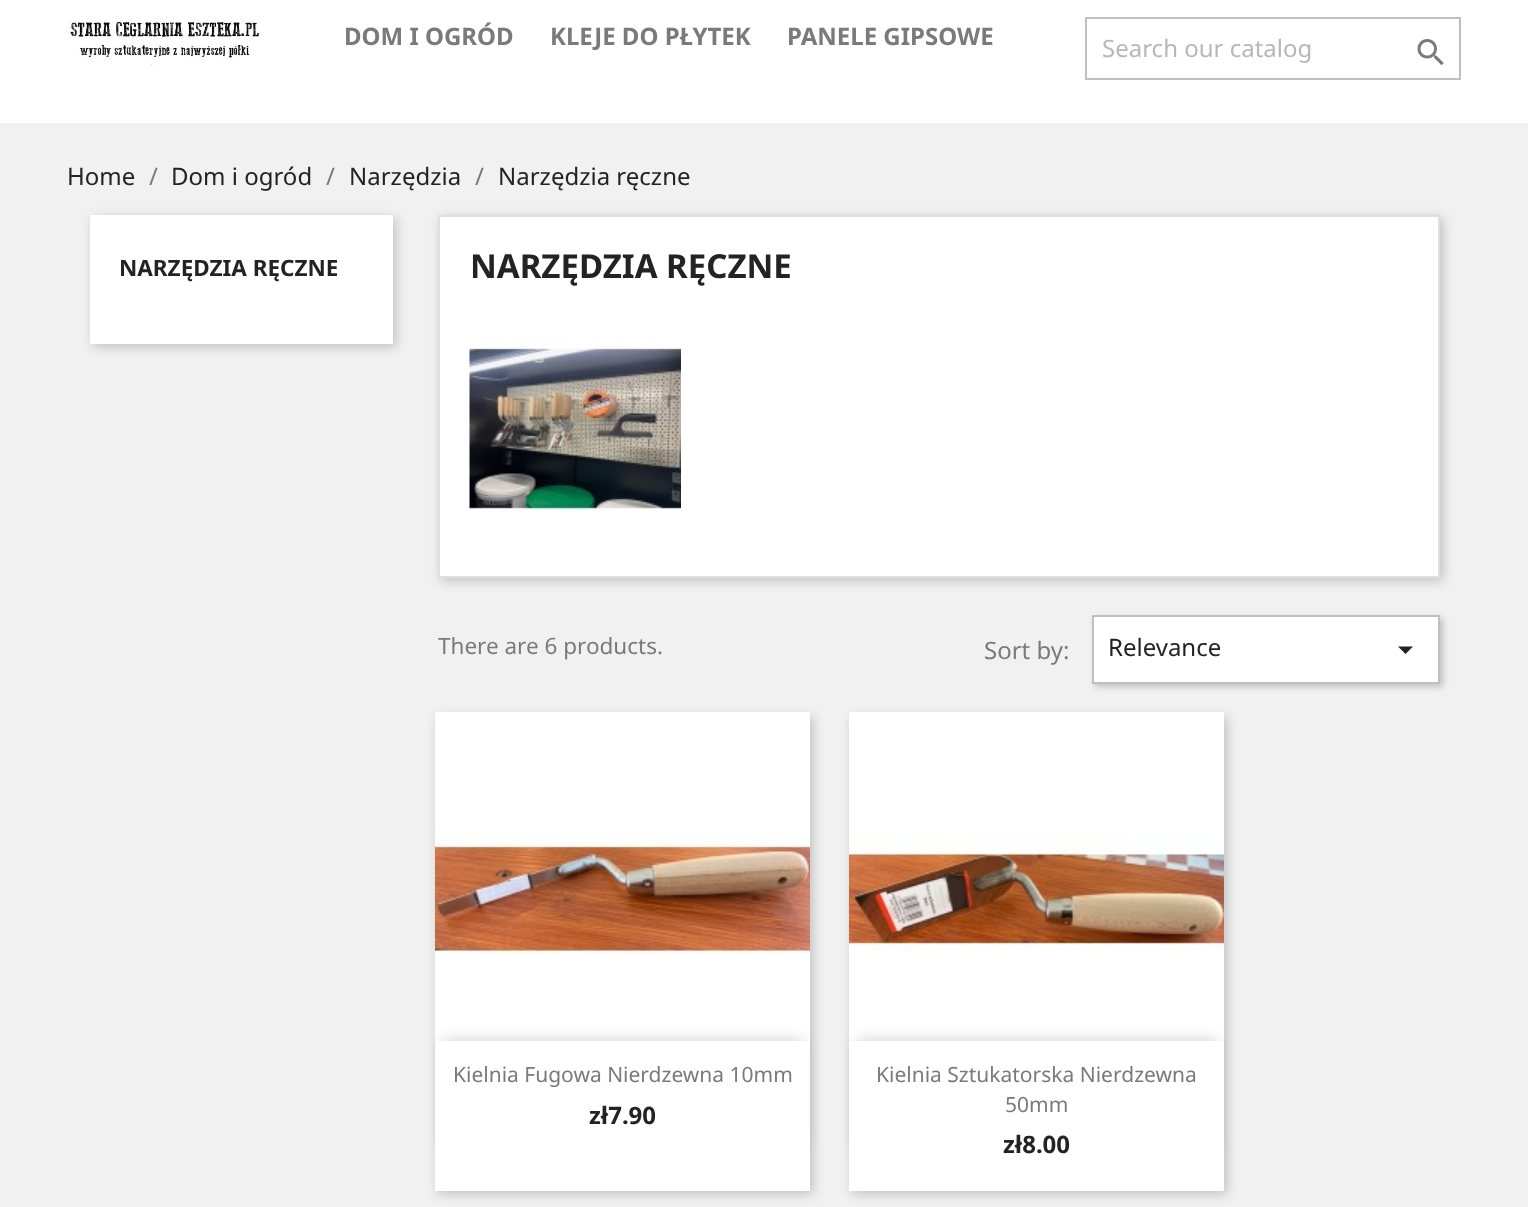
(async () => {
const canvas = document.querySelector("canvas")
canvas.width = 1528
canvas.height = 1207
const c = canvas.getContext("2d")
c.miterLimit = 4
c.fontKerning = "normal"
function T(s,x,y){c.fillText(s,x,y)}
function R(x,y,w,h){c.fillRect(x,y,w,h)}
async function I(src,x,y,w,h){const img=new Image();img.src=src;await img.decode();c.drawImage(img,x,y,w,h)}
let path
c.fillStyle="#fff"
R(0,0,1528,1207)
await I("1.png",67,20,193,46)
c.font="bold 24px Noto Sans"
c.fillStyle="#7a7a7a"
T("DOM I OGRÓD",344,45)
T("KLEJE DO PŁYTEK",550,45)
T("PANELE GIPSOWE",787,45)
c.strokeStyle="#bfbfbf"
c.lineWidth=2
c.strokeRect(1086,18,374,61)
c.font="24px Noto Sans"
c.fillStyle="#b7b7b7"
T("Search our catalog",1102,57)
await I("2.png",1417,39,27,27)
c.fillStyle="#f1f1f1"
R(0,123,1528,1084)
c.fillStyle="#232323"
T("Home",67,185)
c.fillStyle="#7a7a7a"
T("/",149,185)
c.fillStyle="#232323"
T("Dom i ogród",171,185)
c.fillStyle="#7a7a7a"
T("/",326,185)
c.fillStyle="#232323"
T("Narzędzia",349,185)
c.fillStyle="#7a7a7a"
T("/",475,185)
c.fillStyle="#232323"
T("Narzędzia ręczne",498,185)
c.fillStyle="#00000033"
c.filter="blur(6px)"
c.beginPath()
c.rect(93,218,303,129)
c.fill()
c.filter="none"
c.fillStyle="#fff"
R(90,215,303,129)
c.font="bold 22.5px Noto Sans"
c.fillStyle="#232323"
T("NARZĘDZIA RĘCZNE",119,276)
c.fillStyle="#00000033"
c.filter="blur(6px)"
c.beginPath()
c.rect(441,218,1002,363)
c.fill()
c.filter="none"
c.fillStyle="#fff"
c.beginPath()
c.rect(439,216,1000,361)
c.fill()
c.strokeStyle="#dfdfdf"
c.stroke()
c.font="bold 33px Noto Sans"
c.fillStyle="#232323"
T("NARZĘDZIA RĘCZNE",470,278)
await I("3.png",469,342,212,169)
c.font="22.5px Noto Sans"
c.fillStyle="#7a7a7a"
T("There are 6 products.",438,654)
c.font="24px Noto Sans"
T("Sort by:",984,659)
c.fillStyle="#00000033"
c.filter="blur(3px)"
c.beginPath()
c.rect(1095,618,348,69)
c.fill()
c.filter="none"
c.fillStyle="#fff"
c.beginPath()
c.rect(1093,616,346,67)
c.fill()
c.strokeStyle="#bfbfbf"
c.stroke()
c.fillStyle="#232323"
T("Relevance",1108,656)
path = new Path2D("M1398 646.5h15l-7.5 7.5z")
c.fill(path)
c.fillStyle="#00000033"
c.filter="blur(6px)"
c.beginPath()
c.rect(438,717,375,477)
c.fill()
c.filter="none"
c.fillStyle="#fff"
R(435,954,375,87)
await I("4.png",435,712,375,242)
c.fillStyle="#00000033"
c.filter="blur(7.5px)"
c.beginPath()
c.rect(443,1041,360,105)
c.fill()
c.filter="none"
c.fillStyle="#fff"
R(435,1041,375,150)
c.font="21px Noto Sans"
c.fillStyle="#7a7a7a"
T("Kielnia Fugowa Nierdzewna 10mm",453,1082)
c.font="bold 24px Noto Sans"
c.fillStyle="#232323"
T("zł7.90",589,1124)
c.fillStyle="#00000033"
c.filter="blur(6px)"
c.beginPath()
c.rect(852,717,375,477)
c.fill()
c.filter="none"
c.fillStyle="#fff"
R(849,952,375,89)
await I("5.png",849,712,375,240)
c.fillStyle="#00000033"
c.filter="blur(7.5px)"
c.beginPath()
c.rect(857,1041,360,105)
c.fill()
c.filter="none"
c.fillStyle="#fff"
R(849,1041,375,150)
c.font="21px Noto Sans"
c.fillStyle="#7a7a7a"
T("Kielnia Sztukatorska Nierdzewna",876,1082)
T("50mm",1005,1112)
c.font="bold 24px Noto Sans"
c.fillStyle="#232323"
T("zł8.00",1003,1153)
})()
